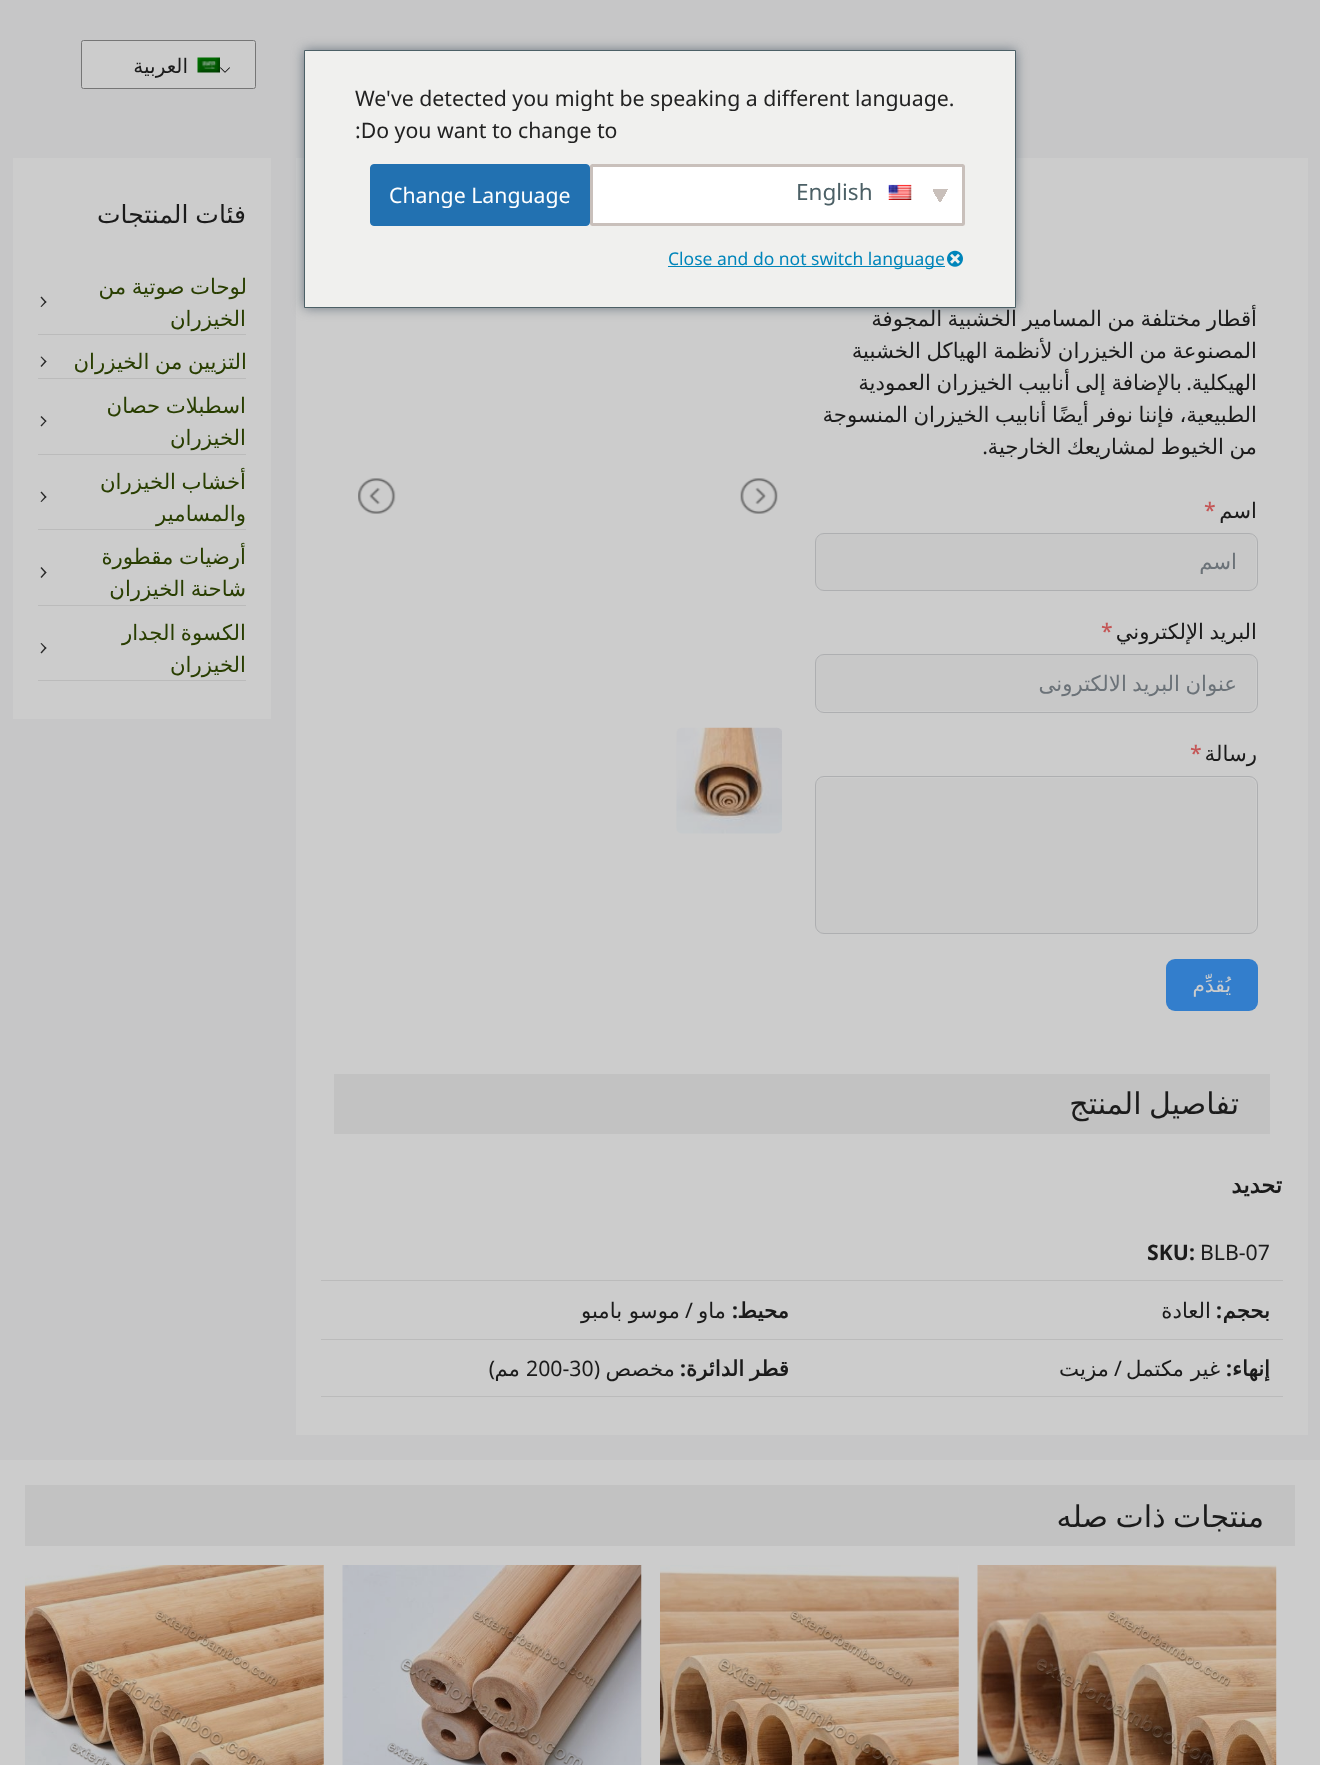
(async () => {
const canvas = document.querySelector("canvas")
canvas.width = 1320
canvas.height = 1765
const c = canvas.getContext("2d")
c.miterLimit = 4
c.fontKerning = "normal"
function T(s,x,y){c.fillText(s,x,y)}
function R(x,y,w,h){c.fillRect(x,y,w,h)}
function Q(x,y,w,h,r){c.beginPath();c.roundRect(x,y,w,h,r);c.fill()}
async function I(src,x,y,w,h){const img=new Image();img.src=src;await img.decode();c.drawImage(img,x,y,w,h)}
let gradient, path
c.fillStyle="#c6c6c7"
R(0,0,1320,1765)
c.fillStyle="#ccc"
Q(81,40,175,49,2.5)
await I("1.png",220,67,10,6)
c.beginPath()
c.roundRect(81.5,40.5,174,48,2)
c.strokeStyle="#767676"
c.stroke()
await I("2.png",197,57,23,16)
c.direction="rtl"
c.font="20px DejaVu Sans"
c.fillStyle="#1b1b1b"
T("العربية",188,73)
c.fillStyle="#ccc"
R(296,158,1012,1277)
c.fillStyle="#6c7781"
c.filter="blur(6px)"
c.beginPath()
c.rect(304,50,712,258)
c.fill()
c.filter="none"
c.wordSpacing="-1.25px"
c.font="21.25px DejaVu Sans"
c.fillStyle="#1b1b1b"
T("أقطار مختلفة من المسامير الخشبية المجوفة",1257,326)
c.fillStyle="#f0f0ee"
c.beginPath()
c.rect(304.5,50.5,711,257)
c.fill()
c.strokeStyle="#4c6066"
c.stroke()
c.wordSpacing="0px"
c.direction="ltr"
c.font="21.25px Noto Sans"
c.fillStyle="#222"
T("We've detected you might be speaking a different language.",355,106)
T(":Do you want to change to",355,138)
c.fillStyle="#fff"
Q(590,164,375,62,2.5)
gradient = c.createLinearGradient(938,193,950,200)
gradient.addColorStop(.5,"#c9c0bb")
gradient.addColorStop(.5,"#fff")
c.fillStyle = gradient
R(940,189,8,15)
gradient = c.createLinearGradient(930,200,942,193)
gradient.addColorStop(.5,"#fff")
gradient.addColorStop(.5,"#c9c0bb")
c.fillStyle = gradient
R(933,189,7,15)
c.beginPath()
c.roundRect(591.5,165.5,372,59,1)
c.strokeStyle="#c9c0bb"
c.lineWidth=3
c.stroke()
await I("3.png",888,184,24,16)
c.font="22.5px Noto Sans"
c.fillStyle="#4c6066"
T("English",796,200)
c.fillStyle="#2271b1"
c.beginPath()
c.roundRect(370.5,164.5,219,61,3.5)
c.fill()
c.strokeStyle="#2271b1"
c.lineWidth=1
c.stroke()
c.font="21.25px Noto Sans"
c.fillStyle="#fff"
T("Change Language",389,203)
await I("4.png",947,250,16,17)
c.fillStyle="#0085ba"
R(668,266,277,1)
c.font="17.5px Noto Sans"
T("Close and do not switch language",668,265)
c.wordSpacing="-1.25px"
c.direction="rtl"
c.font="21.25px DejaVu Sans"
c.fillStyle="#1b1b1b"
T("المصنوعة من الخيزران لأنظمة الهياكل الخشبية",1257,358)
c.wordSpacing="0px"
T("الهيكلية",1257,390)
c.font="21.25px Noto Sans"
T(".",1192,390)
c.wordSpacing="-1px"
c.font="21.25px DejaVu Sans"
T("بالإضافة إلى أنابيب الخيزران العمودية",1182,390)
c.wordSpacing="-1.25px"
T("الطبيعية، فإننا نوفر أيضًا أنابيب الخيزران المنسوجة",1257,422)
T("من الخيوط لمشاريعك الخارجية",1257,454)
c.wordSpacing="0px"
c.font="21.25px Noto Sans"
T(".",988,454)
c.font="21.25px DejaVu Sans"
T("اسم",1257,518)
c.direction="ltr"
c.font="500 21.25px Noto Sans"
c.fillStyle="#c45656"
T("*",1204,518)
c.fillStyle="#c8c8c8"
Q(816,534,440,56,8)
c.beginPath()
c.roundRect(815.5,533.5,442,57,8.5)
c.strokeStyle="#aeafb1"
c.stroke()
c.direction="rtl"
c.font="21.25px DejaVu Sans"
c.fillStyle="#6b7278"
T("اسم",1237,569)
c.wordSpacing="-1.25px"
c.fillStyle="#1b1b1b"
T("البريد الإلكتروني",1257,639)
c.wordSpacing="0px"
c.direction="ltr"
c.font="500 21.25px Noto Sans"
c.fillStyle="#c45656"
T("*",1101,639)
c.fillStyle="#c8c8c8"
Q(816,655,440,56,8)
c.beginPath()
c.roundRect(815.5,654.5,442,58,8.5)
c.stroke()
c.wordSpacing="-1.25px"
c.direction="rtl"
c.font="21.25px DejaVu Sans"
c.fillStyle="#6b7278"
T("عنوان البريد الالكترونى",1237,691)
c.wordSpacing="0px"
c.fillStyle="#1b1b1b"
T("رسالة",1257,761)
c.direction="ltr"
c.font="500 21.25px Noto Sans"
c.fillStyle="#c45656"
T("*",1190,761)
c.fillStyle="#c8c8c8"
Q(816,778,440,155,8)
c.beginPath()
c.roundRect(815.5,776.5,442,157,8.5)
c.stroke()
c.fillStyle="#337ecc"
Q(1166,959,92,52,9)
c.direction="rtl"
c.font="20px DejaVu Sans"
c.fillStyle="#ccc"
T("يُقدِّم",1231,992)
await I("5.png",740,478,38,36)
await I("6.png",358,478,38,36)
await I("7.png",676,727,106,107)
c.fillStyle="#c2c2c2"
R(334,1074,936,60)
c.wordSpacing="-2px"
c.font="30px DejaVu Sans"
c.fillStyle="#1b1b1b"
T("تفاصيل المنتج",1239,1114)
c.wordSpacing="0px"
c.font="bold 22.5px DejaVu Sans"
T("تحديد",1282,1193)
c.fillStyle="#bbb"
R(321,1280,962,1)
c.direction="ltr"
c.font="21.25px Noto Sans"
c.fillStyle="#1b1b1b"
T("BLB-07",1200,1260)
c.font="bold 21.25px Noto Sans"
T("SKU:",1147,1260)
c.direction="rtl"
c.font="bold 21.25px DejaVu Sans"
T("بحجم",1270,1318)
c.font="bold 21.25px Noto Sans"
T(":",1222,1318)
c.font="21.25px DejaVu Sans"
T("العادة",1211,1318)
c.fillStyle="#bbb"
R(321,1339,962,1)
c.font="bold 21.25px DejaVu Sans"
c.fillStyle="#1b1b1b"
T("محيط",789,1318)
c.font="bold 21.25px Noto Sans"
T(":",738,1318)
c.font="21.25px DejaVu Sans"
T("ماو",726,1318)
c.font="21.25px Noto Sans"
T("/",693,1318)
c.font="21.25px DejaVu Sans"
T("موسو بامبو",680,1318)
c.font="bold 21.25px DejaVu Sans"
T("إنهاء",1270,1376)
c.font="bold 21.25px Noto Sans"
T(":",1232,1376)
c.font="21.25px DejaVu Sans"
T("غير مكتمل",1220,1376)
c.font="21.25px Noto Sans"
T("/",1122,1376)
c.font="21.25px DejaVu Sans"
T("مزيت",1109,1376)
c.fillStyle="#bbb"
R(321,1396,962,1)
c.wordSpacing="-1.25px"
c.font="bold 21.25px DejaVu Sans"
c.fillStyle="#1b1b1b"
T("قطر الدائرة",789,1376)
c.wordSpacing="0px"
c.font="bold 21.25px Noto Sans"
T(":",686,1376)
c.font="21.25px DejaVu Sans"
T("مخصص",675,1376)
c.font="21.25px Noto Sans"
T("(",600,1376)
c.direction="ltr"
T("200-30",526,1376)
c.direction="rtl"
c.font="21.25px DejaVu Sans"
T("مم",520,1376)
c.font="21.25px Noto Sans"
T(")",495,1376)
c.fillStyle="#ccc"
R(13,158,258,561)
c.wordSpacing="-1px"
c.font="25px DejaVu Sans"
c.fillStyle="#1b1b1b"
T("فئات المنتجات",246,223)
c.fillStyle="#bbb"
R(38,334,208,1)
c.wordSpacing="-1.25px"
c.font="21.25px DejaVu Sans"
c.fillStyle="#293e01"
T("لوحات صوتية من",247,294)
c.fillStyle="#292929"
path = new Path2D("M40.5 297.5l1-1l5 5.5l-1 1z")
c.fill(path)
path = new Path2D("M40.5 306.5l5-5.5l1 1l-5 5z")
c.fill(path)
c.wordSpacing="0px"
c.fillStyle="#293e01"
T("الخيزران",246,326)
c.fillStyle="#bbb"
R(38,378,208,1)
c.wordSpacing="-1.25px"
c.fillStyle="#293e01"
T("التزيين من الخيزران",247,369)
c.fillStyle="#292929"
path = new Path2D("M40.5 357l1-.5l5 5l-1 1z")
c.fill(path)
path = new Path2D("M40.5 366l5-5.5l1 1l-5 5.5z")
c.fill(path)
c.fillStyle="#bbb"
R(38,454,208,1)
c.fillStyle="#293e01"
T("اسطبلات حصان",246,413)
c.fillStyle="#292929"
path = new Path2D("M40.5 417l1-1l5 5l-1 1z")
c.fill(path)
path = new Path2D("M40.5 425.5l5-5l1 .5l-5 5.5z")
c.fill(path)
c.wordSpacing="0px"
c.fillStyle="#293e01"
T("الخيزران",246,445)
c.fillStyle="#bbb"
R(38,529,208,1)
c.wordSpacing="-1.25px"
c.fillStyle="#293e01"
T("أخشاب الخيزران",246,489)
c.fillStyle="#292929"
path = new Path2D("M40.5 492.5l1-1l5 5.5l-1 1z")
c.fill(path)
path = new Path2D("M40.5 501.5l5-5.5l1 1l-5 5z")
c.fill(path)
c.wordSpacing="0px"
c.fillStyle="#293e01"
T("والمسامير",246,521)
c.fillStyle="#bbb"
R(38,605,208,1)
c.wordSpacing="-1.25px"
c.fillStyle="#293e01"
T("أرضيات مقطورة",246,564)
c.fillStyle="#292929"
path = new Path2D("M40.5 568l1-1l5 5.5l-1 1z")
c.fill(path)
path = new Path2D("M40.5 577l5-5.5l1 1l-5 5.5z")
c.fill(path)
c.fillStyle="#293e01"
T("شاحنة الخيزران",246,596)
c.fillStyle="#bbb"
R(38,680,208,1)
c.fillStyle="#293e01"
T("الكسوة الجدار",246,640)
c.fillStyle="#292929"
path = new Path2D("M40.5 643.5l1-.5l5 5l-1 1z")
c.fill(path)
path = new Path2D("M40.5 652.5l5-5.5l1 1l-5 5.5z")
c.fill(path)
c.wordSpacing="0px"
c.fillStyle="#293e01"
T("الخيزران",246,672)
c.fillStyle="#ccc"
R(0,1460,1320,305)
c.fillStyle="#c2c2c2"
R(25,1485,1270,61)
c.wordSpacing="-2px"
c.font="30px DejaVu Sans"
c.fillStyle="#1b1b1b"
T("منتجات ذات صله",1264,1527)
await I("8.png",977,1565,300,200)
await I("9.png",660,1565,299,200)
await I("10.png",342,1565,300,200)
await I("11.png",25,1565,299,200)
})()
